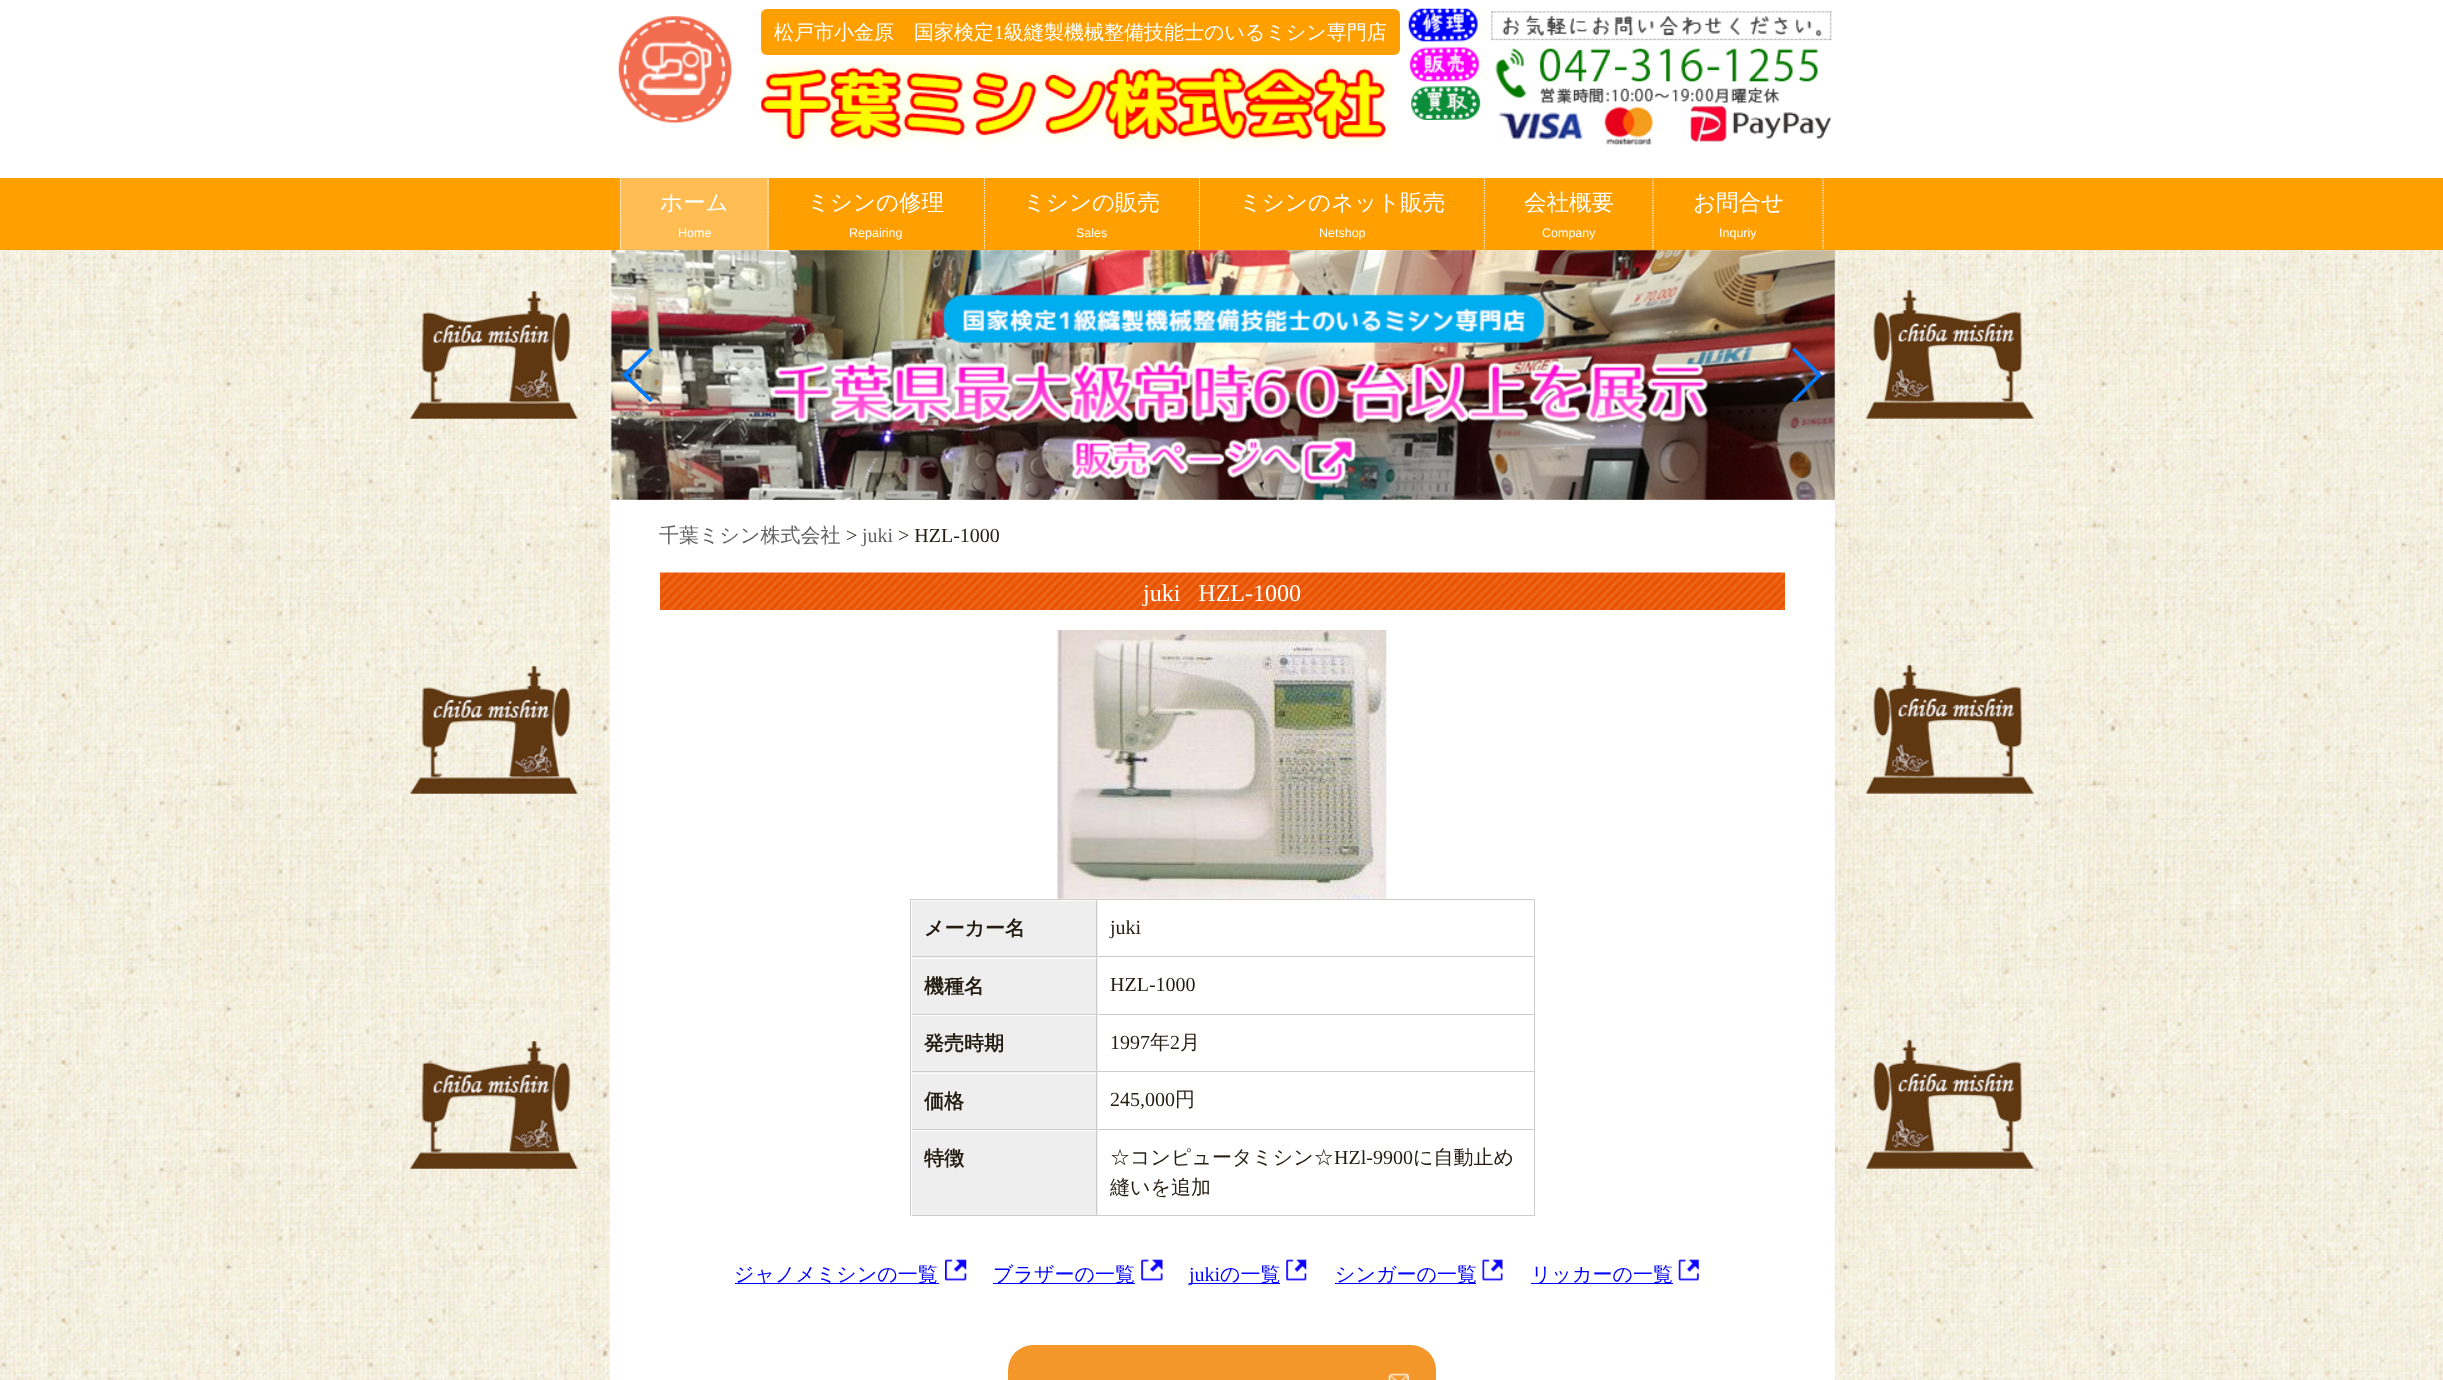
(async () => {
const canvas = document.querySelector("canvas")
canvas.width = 2443
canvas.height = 1380
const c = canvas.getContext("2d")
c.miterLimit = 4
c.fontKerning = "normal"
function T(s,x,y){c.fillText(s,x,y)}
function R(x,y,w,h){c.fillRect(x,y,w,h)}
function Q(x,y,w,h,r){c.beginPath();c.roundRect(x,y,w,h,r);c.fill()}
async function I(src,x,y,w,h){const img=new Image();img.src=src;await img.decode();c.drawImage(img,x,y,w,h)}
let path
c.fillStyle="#fff"
R(0,0,2443,1380)
await I("1.png",0,250,2443,1130)
await I("2.png",618,16,120,107)
c.fillStyle="#ff9f00"
Q(761,9,639,46,6)
c.font="500 20px WenQuanYi Zen Hei"
c.fillStyle="#fff"
T("松戸市小金原　国家検定",774,39)
c.font="20px Liberation Serif"
T("1",994,39)
c.font="500 20px WenQuanYi Zen Hei"
T("級縫製機械整備技能士のいるミシン専門店",1004,39)
await I("3.png",761,58,633,90)
await I("4.png",1408,8,73,112)
await I("5.png",1491,11,341,134)
c.fillStyle="#ff9f00"
R(0,178,2443,72)
c.fillStyle="#ffbd54"
R(620,178,149,72)
path = new Path2D("M768 177.5v72.5")
c.strokeStyle="#fff"
c.lineWidth=1.2
c.setLineDash([1.25,1.25])
c.stroke(path)
path = new Path2D("M620.5 177.5v72.5")
c.stroke(path)
c.font="500 22.5px WenQuanYi Zen Hei"
c.fillStyle="#fff"
T("ホーム",660,210)
c.font="12.5px Liberation Sans"
T("Home",678,237)
path = new Path2D("M984.5 177.5v72.5")
c.stroke(path)
c.font="500 22.5px WenQuanYi Zen Hei"
T("ミシンの修理",807,210)
c.font="12.5px Liberation Sans"
T("Repairing",849,237)
c.fillStyle="#ff9f00"
R(985,178,1,71)
path = new Path2D("M1199.5 177.5v72.5")
c.stroke(path)
c.font="500 22.5px WenQuanYi Zen Hei"
c.fillStyle="#fff"
T("ミシンの販売",1023,210)
c.font="12.5px Liberation Sans"
T("Sales",1076,237)
c.fillStyle="#ff9f00"
R(1200,178,1,71)
path = new Path2D("M1484.5 177.5v72.5")
c.stroke(path)
c.font="500 22.5px WenQuanYi Zen Hei"
c.fillStyle="#fff"
T("ミシンのネット販売",1239,210)
c.font="12.5px Liberation Sans"
T("Netshop",1319,237)
c.fillStyle="#ff9f00"
R(1485,178,1,71)
path = new Path2D("M1653 177.5v72.5")
c.stroke(path)
c.font="500 22.5px WenQuanYi Zen Hei"
c.fillStyle="#fff"
T("会社概要",1524,210)
c.font="12.5px Liberation Sans"
T("Company",1542,237)
path = new Path2D("M1823 177.5v72.5")
c.stroke(path)
c.font="500 22.5px WenQuanYi Zen Hei"
T("お問合せ",1693,210)
c.font="12.5px Liberation Sans"
T("Inquriy",1719,237)
await I("6.png",410,289,1624,880)
await I("7.png",610,250,1225,250)
await I("8.png",1834,250,1,250)
c.fillStyle="#007aff"
path = new Path2D("M622 375l28-27l3 2l-25 25l25 25l-3 2z")
c.fill(path)
path = new Path2D("M1822 375l-27 27l-3-2l25-25l-25-25l3-2z")
c.fill(path)
c.fillStyle="#fff"
R(610,500,1225,880)
c.font="500 20px WenQuanYi Zen Hei"
c.fillStyle="#636363"
T("千葉ミシン株式会社",659,542)
c.font="20px Liberation Serif"
c.fillStyle="#251d12"
T(">",846,542)
c.fillStyle="#636363"
T("juki",862,542)
c.fillStyle="#251d12"
T("> HZL-1000",898,542)
await I("9.png",660,572,1125,38)
c.font="24px Liberation Serif"
c.fillStyle="#fff"
T("juki   HZL-1000",1143,601)
await I("10.png",1057,630,330,269)
c.fillStyle="#ccc"
R(910,899,625,1)
R(910,899,1,317)
c.fillStyle="#eee"
R(912,901,186,57)
c.fillStyle="#ccc"
R(1096,900,1,58)
R(911,956,187,1)
c.fillStyle="#fff"
R(911,956,1,2)
c.font="bold 20px WenQuanYi Zen Hei"
c.fillStyle="#251d12"
T("メーカー名",924,935)
c.fillStyle="#ccc"
R(1534,900,1,316)
R(1098,956,437,1)
c.font="20px Liberation Serif"
c.fillStyle="#251d12"
T("juki",1110,934)
c.fillStyle="#eee"
R(912,959,186,55)
c.fillStyle="#ccc"
R(1096,958,1,57)
R(911,1014,624,1)
c.fillStyle="#fff"
R(911,1014,1,1)
c.font="bold 20px WenQuanYi Zen Hei"
c.fillStyle="#251d12"
T("機種名",924,993)
c.font="20px Liberation Serif"
T("HZL-1000",1110,991)
c.fillStyle="#eee"
R(912,1016,186,57)
c.fillStyle="#ccc"
R(1096,1015,1,58)
R(911,1071,624,1)
c.fillStyle="#fff"
R(911,1071,1,2)
c.font="bold 20px WenQuanYi Zen Hei"
c.fillStyle="#251d12"
T("発売時期",924,1050)
c.font="20px Liberation Serif"
T("1997",1110,1049)
c.font="500 20px WenQuanYi Zen Hei"
T("年",1150,1049)
c.font="20px Liberation Serif"
T("2",1170,1049)
c.font="500 20px WenQuanYi Zen Hei"
T("月",1180,1049)
c.fillStyle="#eee"
R(912,1074,186,55)
c.fillStyle="#ccc"
R(1096,1073,1,57)
R(911,1129,624,1)
c.fillStyle="#fff"
R(911,1129,1,1)
c.font="bold 20px WenQuanYi Zen Hei"
c.fillStyle="#251d12"
T("価格",924,1108)
c.font="20px Liberation Serif"
T("245,000",1110,1106)
c.font="500 20px WenQuanYi Zen Hei"
T("円",1175,1106)
c.fillStyle="#eee"
R(912,1131,186,84)
c.fillStyle="#ccc"
R(1096,1130,1,86)
R(911,1215,624,1)
c.fillStyle="#fff"
R(911,1215,1,1)
c.font="bold 20px WenQuanYi Zen Hei"
c.fillStyle="#251d12"
T("特徴",924,1165)
c.font="500 20px WenQuanYi Zen Hei"
T("☆コンピュータミシン☆",1110,1164)
c.font="20px Liberation Serif"
T("HZl-9900",1334,1164)
c.font="500 20px WenQuanYi Zen Hei"
T("に自動止め",1413,1164)
T("縫いを追加",1110,1194)
c.fillStyle="#00f"
R(735,1283,204,1)
T("ジャノメミシンの一覧",734,1281)
await I("11.png",945,1259,22,22)
R(993,1283,142,1)
T("ブラザーの一覧",993,1281)
await I("12.png",1141,1259,22,22)
R(1189,1283,91,1)
c.font="20px Liberation Serif"
T("juki",1189,1281)
c.font="500 20px WenQuanYi Zen Hei"
T("の一覧",1220,1281)
await I("13.png",1286,1259,21,22)
R(1335,1283,141,1)
T("シンガーの一覧",1335,1281)
await I("14.png",1482,1259,21,22)
R(1531,1283,142,1)
T("リッカーの一覧",1531,1281)
await I("15.png",1678,1259,21,22)
c.fillStyle="#f3972b"
Q(1008,1345,428,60,25)
await I("16.png",1388,1373,21,7)
})()
